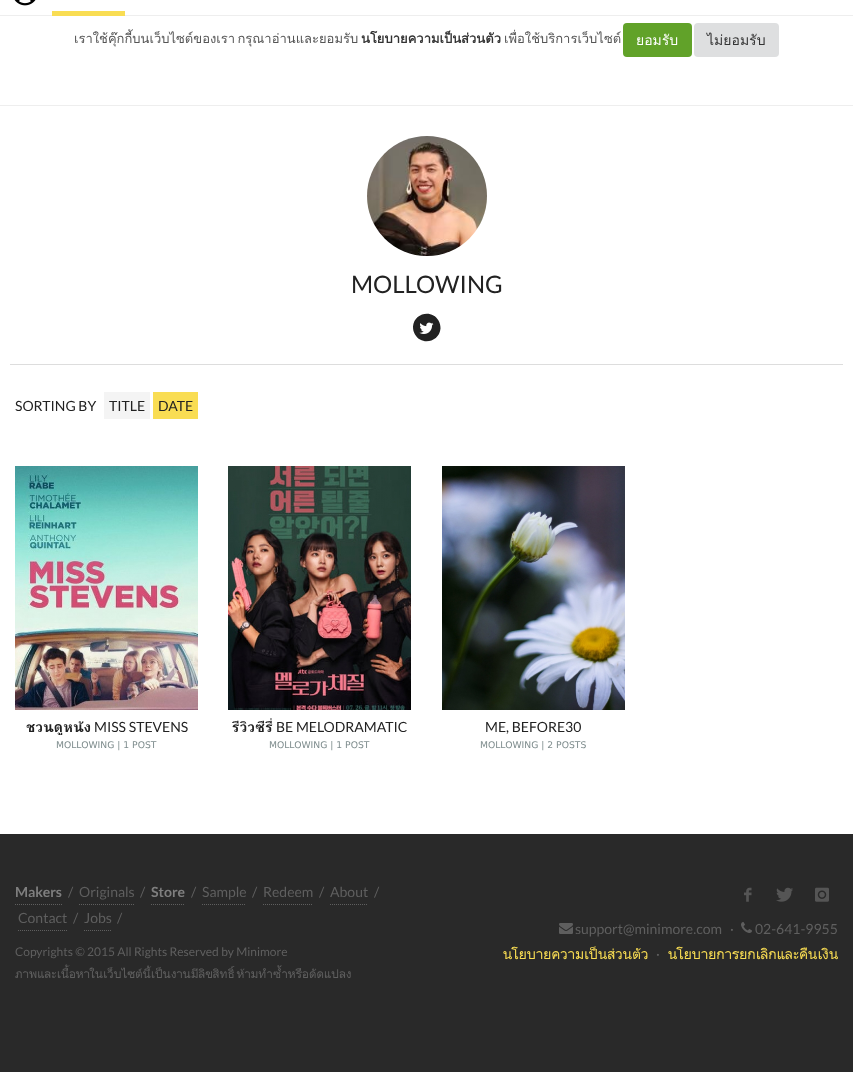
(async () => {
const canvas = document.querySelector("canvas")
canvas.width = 853
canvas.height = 1072
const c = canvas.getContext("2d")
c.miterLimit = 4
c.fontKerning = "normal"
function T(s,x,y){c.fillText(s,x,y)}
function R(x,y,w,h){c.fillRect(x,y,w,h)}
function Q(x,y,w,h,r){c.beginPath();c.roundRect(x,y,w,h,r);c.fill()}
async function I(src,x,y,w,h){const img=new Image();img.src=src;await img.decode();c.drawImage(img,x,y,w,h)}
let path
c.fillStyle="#fff"
R(0,0,853,1072)
c.fillStyle="#eee"
R(0,15,853,1)
await I("1.png",14,0,22,6)
c.fillStyle="#f9dd53"
R(52,11,73,5)
c.fillStyle="#eee"
R(0,105,853,1)
c.wordSpacing="-2px"
c.font="13px Loma"
c.fillStyle="#555"
T("เราใช้คุ๊กกี้บนเว็บไซต์ของเรา กรุณาอ่านและยอมรับ",74,43)
c.wordSpacing="0px"
c.font="bold 13px Loma"
c.fillStyle="#333"
T("นโยบายความเป็นส่วนตัว",361,43)
c.font="13px Loma"
c.fillStyle="#555"
T("เพื่อใช้บริการเว็บไซต์",504,43)
c.fillStyle="#61a229"
Q(623,23,69,34,4)
c.font="14px Loma"
c.fillStyle="#fff"
T("ยอมรับ",636,45)
c.fillStyle="#dedfe0"
Q(694,23,85,34,4)
c.fillStyle="#333"
T("ไม่ยอมรับ",707,45)
c.fillStyle="#ddd"
R(10,364,833,1)
await I("2.png",367,136,120,120)
c.font="24px Lato"
c.fillStyle="#222"
T("MOLLOWING",351,293)
path = new Path2D("M438.5 320.5c1.5 2.5 2 5.5 2 8c-1 13.5-19 17.5-25.5 6c-1.5-2.5-2-5-2-8c1-13.5 19-17.5 25.5-6z")
c.fill(path)
await I("3.png",419,322,15,12)
c.font="14px Lato"
T("SORTING BY",15,411)
c.fillStyle="#f4f4f4"
R(104,392,46,27)
c.fillStyle="#222"
T("TITLE",109,411)
c.fillStyle="#f9dd53"
R(153,392,45,27)
c.fillStyle="#222"
T("DATE",158,411)
await I("4.png",15,466,183,244)
c.save()
c.beginPath()
c.rect(15,718,183,17)
c.clip()
c.font="bold 14px Droid Sans"
T("ชวนดูหนัง",26,732)
c.restore()
T("MISS STEVENS",94,732)
c.font="16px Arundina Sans"
c.fillStyle="#7e8c8d"
T("MOLLOWING | 1 POST",56,748)
await I("5.png",228,466,183,244)
c.save()
c.beginPath()
c.rect(228,718,184,17)
c.clip()
c.font="bold 14px Droid Sans"
c.fillStyle="#222"
T("รีวิวซีรี่",232,732)
c.restore()
c.font="14px Lato"
c.fillStyle="#222"
T("BE MELODRAMATIC",276,732)
c.font="16px Arundina Sans"
c.fillStyle="#7e8c8d"
T("MOLLOWING | 1 POST",269,748)
await I("6.png",442,466,183,244)
c.font="14px Lato"
c.fillStyle="#222"
T("ME, BEFORE30",485,732)
c.font="16px Arundina Sans"
c.fillStyle="#7e8c8d"
T("MOLLOWING | 2 POSTS",480,748)
c.fillStyle="#292929"
R(0,834,853,238)
path = new Path2D("M15 904.5h47")
c.strokeStyle="#5f5f5f"
c.setLineDash([1,1])
c.stroke(path)
c.font="bold 14px Lato"
c.fillStyle="#7f7f7f"
T("Makers",15,897)
c.font="14px Lato"
c.fillStyle="#5f5f5f"
T("/",68,897)
path = new Path2D("M79 904.5h55")
c.stroke(path)
T("Originals",79,897)
T("/",140,897)
path = new Path2D("M151 904.5h34")
c.stroke(path)
c.font="bold 14px Lato"
c.fillStyle="#7f7f7f"
T("Store",151,897)
c.font="14px Lato"
c.fillStyle="#5f5f5f"
T("/",191,897)
path = new Path2D("M202 904.5h44")
c.stroke(path)
T("Sample",202,897)
T("/",252,897)
path = new Path2D("M263 904.5h50")
c.stroke(path)
T("Redeem",263,897)
T("/",319,897)
path = new Path2D("M330 904.5h38")
c.stroke(path)
T("About",330,897)
T("/",374,897)
path = new Path2D("M18 930.5h49")
c.stroke(path)
T("Contact",18,923)
T("/",73,923)
path = new Path2D("M84 930.5h28")
c.stroke(path)
T("Jobs",84,923)
T("/",117,923)
c.font="12px Lato"
T("Copyrights © 2015 All Rights Reserved by Minimore",15,956)
c.wordSpacing="-1px"
c.font="12px Droid Sans"
T("ภาพและเนื้อหาในเว็บไซต์นี้เป็นงานมีลิขสิทธิ์ ห้ามทำซ้ำหรือดัดแปลง",15,978)
await I("7.png",744,887,8,15)
await I("8.png",776,887,17,15)
await I("9.png",815,887,14,15)
await I("10.png",559,923,14,11)
c.wordSpacing="0px"
c.font="14px Lato"
T("support@minimore.com",575,934)
T("·",730,934)
await I("11.png",741,922,11,11)
T("02-641-9955",755,934)
c.font="14px Droid Sans"
c.fillStyle="#f9dd53"
T("นโยบายความเป็นส่วนตัว",503,959)
c.font="14px Lato"
c.fillStyle="#5f5f5f"
T("·",656,959)
c.font="14px Droid Sans"
c.fillStyle="#f9dd53"
T("นโยบายการยกเลิกและคืนเงิน",668,959)
})()
